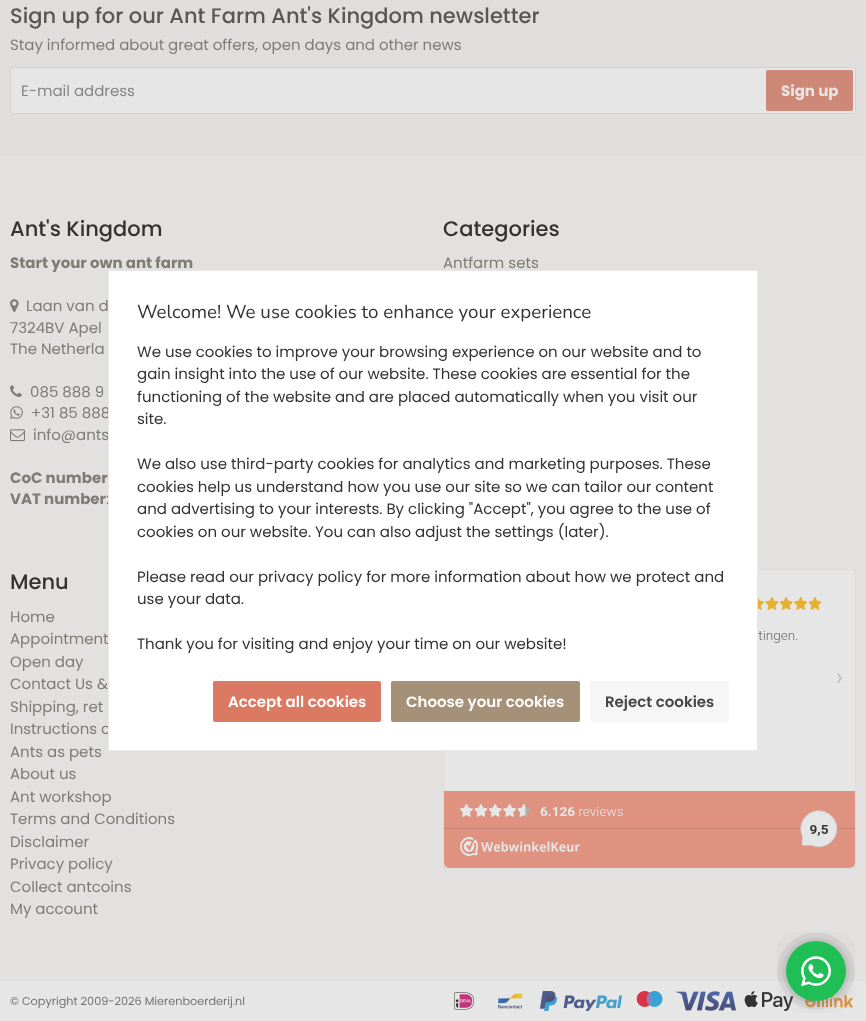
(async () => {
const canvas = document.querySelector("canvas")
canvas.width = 866
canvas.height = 1021
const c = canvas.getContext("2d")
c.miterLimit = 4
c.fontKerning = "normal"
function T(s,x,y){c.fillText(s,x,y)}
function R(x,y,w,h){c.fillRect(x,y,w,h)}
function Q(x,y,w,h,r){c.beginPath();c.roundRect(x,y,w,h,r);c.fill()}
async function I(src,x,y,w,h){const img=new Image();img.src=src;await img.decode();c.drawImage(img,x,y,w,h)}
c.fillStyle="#e6e6e6"
R(0,0,866,1021)
c.fillStyle="#dfdedc"
R(0,0,866,156)
c.font="500 21px Poppins"
c.fillStyle="#575757"
T("Sign up for our Ant Farm Ant's Kingdom newsletter",10,23)
c.font="15px Poppins"
c.fillStyle="#7f7c76"
T("Stay informed about great offers, open days and other news",10,50)
c.fillStyle="#e6e6e6"
c.beginPath()
c.roundRect(10.5,67.5,845,46,2.5)
c.fill()
c.strokeStyle="#d2d2d2"
c.stroke()
c.fillStyle="#858585"
T("E-mail address",21,96)
c.fillStyle="#cd8878"
Q(766,70,87,41,2)
c.font="bold 15px Poppins"
c.fillStyle="#e6e6e6"
T("Sign up",781,96)
c.fillStyle="#e3e1df"
R(0,156,866,825)
c.font="500 21px Poppins"
c.fillStyle="#333"
T("Ant's Kingdom",10,236)
c.font="bold 15px Poppins"
c.fillStyle="#7f7c76"
T("Start your own ant farm",10,268)
await I("1.png",10,299,9,13)
c.font="15px Poppins"
T("Laan van d",26,311)
T("7324BV Apel",10,333)
T("The Netherla",10,354)
await I("2.png",10,385,12,12)
T("085 888 9",30,397)
await I("3.png",10,406,13,13)
T("+31 85 888",31,418)
await I("4.png",10,429,15,13)
T("info@ants",33,440)
c.font="bold 15px Poppins"
T("CoC number",10,483)
T("VAT number",10,504)
c.font="15px Poppins"
T(":",106,504)
c.font="500 21px Poppins"
c.fillStyle="#333"
T("Categories",443,236)
c.font="15px Poppins"
c.fillStyle="#7f7c76"
T("Antfarm sets",443,268)
c.font="500 21px Poppins"
c.fillStyle="#333"
T("Menu",10,589)
c.font="15px Poppins"
c.fillStyle="#7f7c76"
T("Home",10,622)
T("Appointment",10,644)
T("Open day",10,667)
T("Contact Us &",10,689)
T("Shipping, ret",10,712)
T("Instructions a",10,734)
T("Ants as pets",10,757)
T("About us",10,779)
T("Ant workshop",10,802)
T("Terms and Conditions",10,824)
T("Disclaimer",10,847)
T("Privacy policy",10,869)
T("Collect antcoins",10,892)
T("My account",10,914)
await I("5.png",443,569,413,300)
c.fillStyle="#fff"
c.beginPath()
c.rect(108.5,270.5,649,480)
c.fill()
c.strokeStyle="#e8e8e8"
c.stroke()
c.font="18.75px Nunito"
c.fillStyle="#333"
T("Welcome! We use cookies to enhance your experience",137,318)
c.font="15px Poppins"
T("We use cookies to improve your browsing experience on our website and to",137,357)
T("gain insight into the use of our website. These cookies are essential for the",137,379)
T("functioning of the website and are placed automatically when you visit our",137,402)
T("site.",137,424)
T("We also use third-party cookies for analytics and marketing purposes. These",137,469)
T("cookies help us understand how you use our site so we can tailor our content",137,492)
T("and advertising to your interests. By clicking \"Accept\", you agree to the use of",137,514)
T("cookies on our website. You can also adjust the settings (later).",137,537)
T("Please read our privacy policy for more information about how we protect and",137,582)
T("use your data.",137,604)
T("Thank you for visiting and enjoy your time on our website!",137,649)
c.fillStyle="#dc7962"
Q(213,681,168,41,2)
c.font="600 15px Poppins"
c.fillStyle="#fff"
T("Accept all cookies",228,707)
c.fillStyle="#a49177"
Q(391,681,189,41,2)
c.fillStyle="#fff"
T("Choose your cookies",406,707)
c.fillStyle="#f6f6f6"
Q(590,681,139,41,2)
c.fillStyle="#454545"
T("Reject cookies",605,707)
c.font="11.25px Poppins"
c.fillStyle="#737373"
T("© Copyright 2009-2026 Mierenboerderij.nl",10,1005)
await I("6.png",454,992,21,18)
await I("7.png",498,993,25,16)
await I("8.png",540,991,82,20)
await I("9.png",636,991,27,20)
await I("10.png",676,991,60,20)
await I("11.png",744,991,50,20)
await I("12.png",805,994,48,14)
await I("13.png",777,932,78,81)
})()
